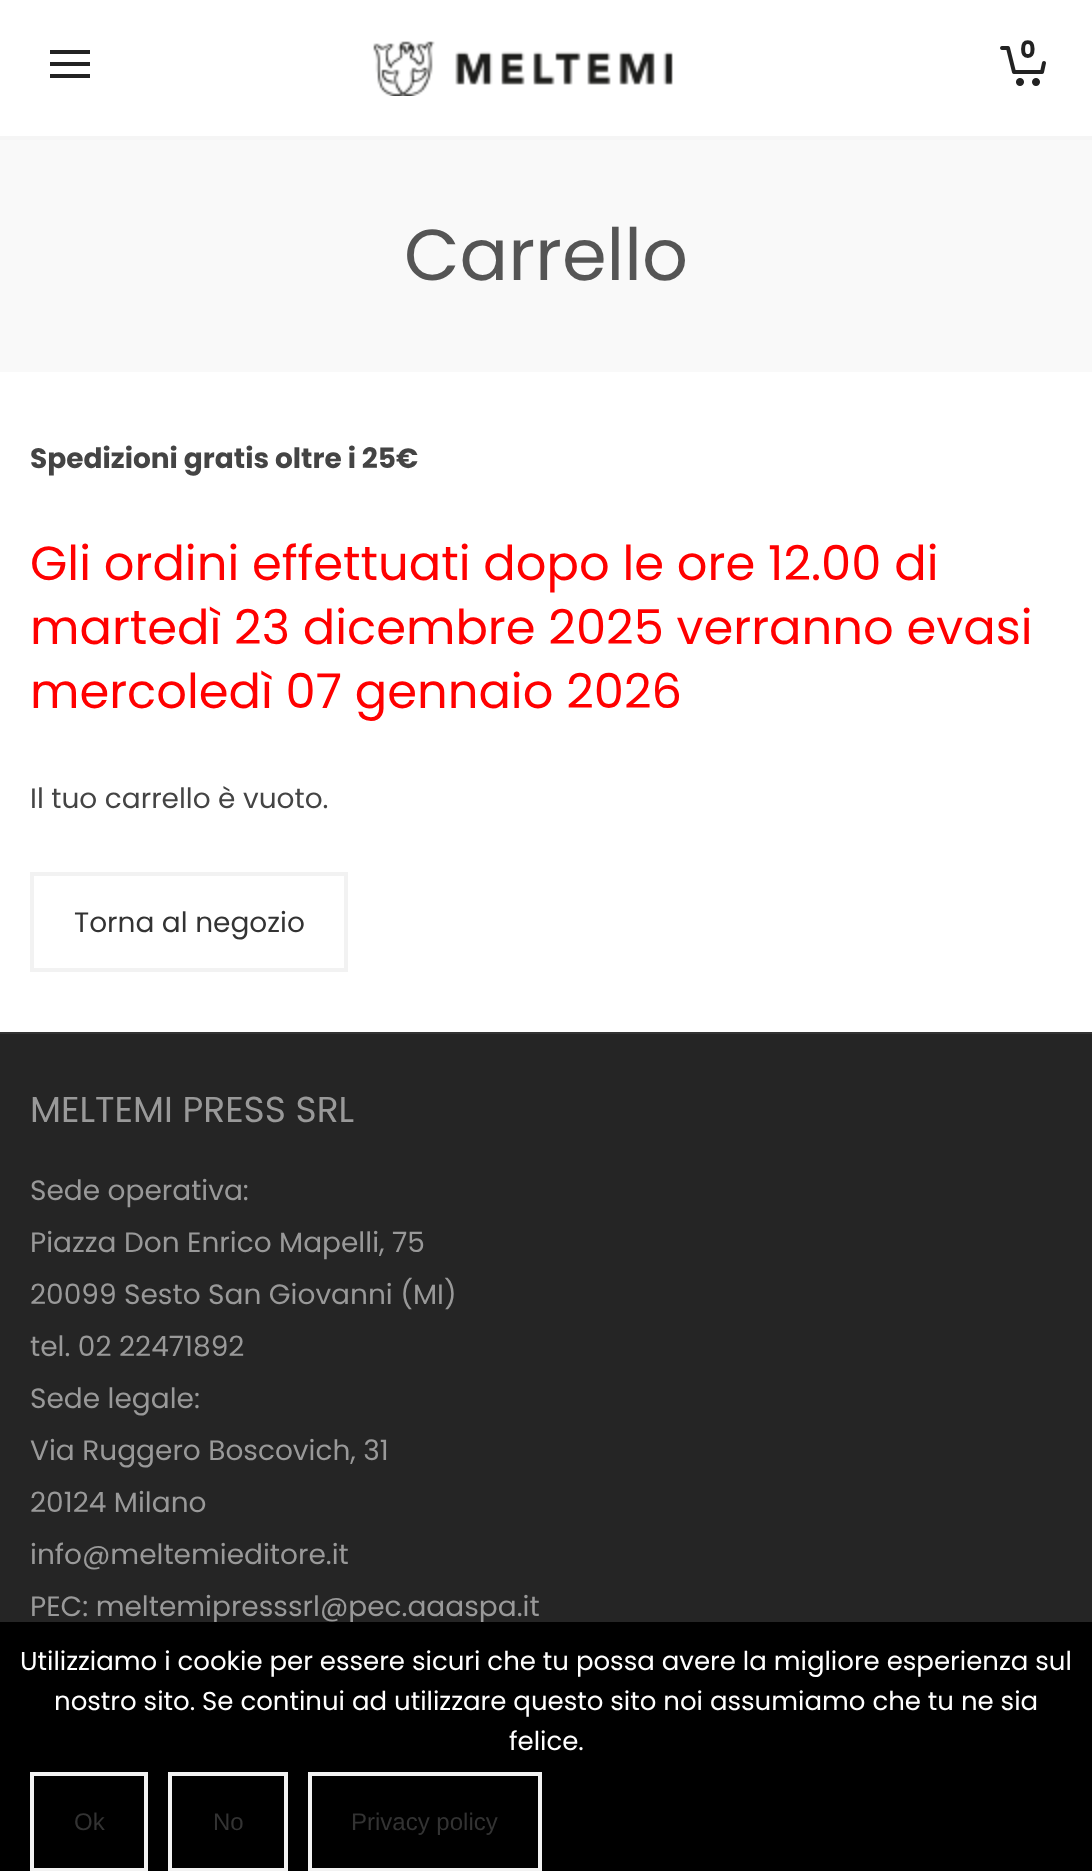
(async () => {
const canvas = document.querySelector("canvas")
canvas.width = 1092
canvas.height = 1871
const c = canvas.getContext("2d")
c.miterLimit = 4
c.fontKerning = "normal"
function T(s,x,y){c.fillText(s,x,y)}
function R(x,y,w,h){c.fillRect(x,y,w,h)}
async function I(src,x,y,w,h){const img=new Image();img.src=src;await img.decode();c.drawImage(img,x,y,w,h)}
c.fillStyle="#fff"
R(0,0,1092,1871)
c.fillStyle="#f5f5f5"
R(0,136,1092,4)
c.fillStyle="#222"
R(50,62,40,4)
R(50,50,40,4)
R(50,74,40,4)
await I("1.png",373,41,300,55)
await I("2.png",1000,46,46,40)
c.font="bold 24px Poppins"
T("0",1020,58)
c.fillStyle="#f9f9f9"
R(0,140,1092,232)
c.font="72px Poppins"
c.fillStyle="#555"
T("Carrello",404,280)
c.font="bold 28px Poppins"
c.fillStyle="#444"
T("Spedizioni gratis oltre i 25€",30,468)
c.font="48px Poppins"
c.fillStyle="#f00"
T("Gli ordini effettuati dopo le ore 12.00 di",30,580)
T("martedì 23 dicembre 2025 verranno evasi",30,644)
T("mercoledì 07 gennaio 2026",30,708)
c.font="28px Poppins"
c.fillStyle="#444"
T("Il tuo carrello è vuoto.",30,808)
c.strokeStyle="#f2f2f2"
c.lineWidth=4
c.strokeRect(32,874,314,96)
c.fillStyle="#333"
T("Torna al negozio",74,932)
c.fillStyle="#252525"
R(0,1034,1092,588)
c.fillStyle="#333"
R(0,1032,1092,2)
c.font="36px Poppins"
c.fillStyle="#999"
T("MELTEMI PRESS SRL",30,1122)
c.font="28px Poppins"
T("Sede operativa:",30,1200)
T("Piazza Don Enrico Mapelli, 75",30,1252)
T("20099 Sesto San Giovanni (MI)",30,1304)
T("tel. 02 22471892",30,1356)
T("Sede legale:",30,1408)
T("Via Ruggero Boscovich, 31",30,1460)
T("20124 Milano",30,1512)
T("info@meltemieditore.it",30,1564)
T("PEC: meltemipresssrl@pec.aaaspa.it",30,1616)
c.fillStyle="#000"
R(0,1622,1092,249)
c.font="26px Poppins"
c.fillStyle="#fff"
T("Utilizziamo i cookie per essere sicuri che tu possa avere la migliore esperienza sul",20,1670)
T("nostro sito. Se continui ad utilizzare questo sito noi assumiamo che tu ne sia",54,1710)
T("felice.",509,1750)
c.strokeRect(32,1774,114,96)
c.font="24px Liberation Sans"
c.fillStyle="#333"
T("Ok",74,1830)
c.strokeRect(170,1774,116,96)
T("No",213,1830)
c.strokeRect(310,1774,230,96)
T("Privacy policy",351,1830)
})()
